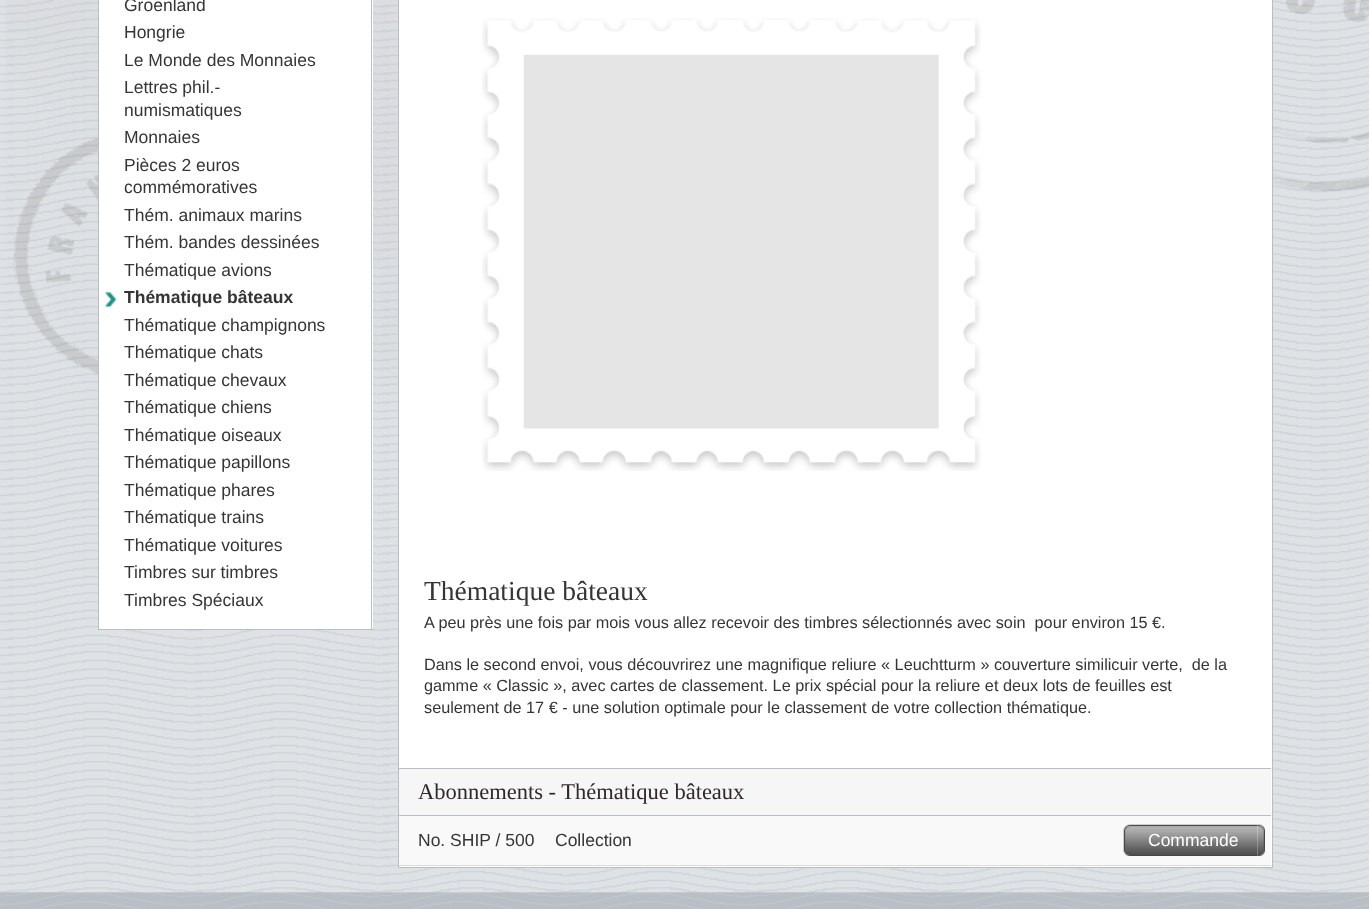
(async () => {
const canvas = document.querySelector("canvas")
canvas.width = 1369
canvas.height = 909
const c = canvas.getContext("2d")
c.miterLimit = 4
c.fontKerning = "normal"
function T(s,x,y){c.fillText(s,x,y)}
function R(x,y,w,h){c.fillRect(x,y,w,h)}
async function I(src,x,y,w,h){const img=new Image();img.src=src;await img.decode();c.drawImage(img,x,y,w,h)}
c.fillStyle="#fff"
R(0,0,1369,909)
await I("1.png",0,0,1369,909)
await I("2.png",5,0,1364,407)
R(99,0,274,629)
c.fillStyle="#babdc1"
R(371,0,1,630)
R(98,629,275,1)
R(98,0,1,630)
c.font="17.5px Liberation Sans"
c.fillStyle="#353535"
T("Groenland",124,11)
T("Hongrie",124,38)
T("Le Monde des Monnaies",124,66)
T("Lettres phil.-",124,93)
T("numismatiques",124,116)
T("Monnaies",124,143)
T("Pièces 2 euros",124,171)
T("commémoratives",124,193)
T("Thém. animaux marins",124,221)
T("Thém. bandes dessinées",124,248)
T("Thématique avions",124,276)
await I("3.png",105,292,12,16)
c.font="bold 17.5px Liberation Sans"
T("Thématique bâteaux",124,303)
c.font="17.5px Liberation Sans"
T("Thématique champignons",124,331)
T("Thématique chats",124,358)
T("Thématique chevaux",124,386)
T("Thématique chiens",124,413)
T("Thématique oiseaux",124,441)
T("Thématique papillons",124,468)
T("Thématique phares",124,496)
T("Thématique trains",124,523)
T("Thématique voitures",124,551)
T("Timbres sur timbres",124,578)
T("Timbres Spéciaux",124,606)
c.fillStyle="#fff"
c.beginPath()
c.rect(398.5,-.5,874,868)
c.fill()
c.strokeStyle="#babdc1"
c.stroke()
await I("4.png",482,18,499,453)
c.font="27.5px Liberation Serif"
c.fillStyle="#353535"
T("Thématique bâteaux",424,600)
c.font="16.25px Liberation Sans"
T("A peu près une fois par mois vous allez recevoir des timbres sélectionnés avec soin  pour environ 15 €.",424,628)
T("Dans le second envoi, vous découvrirez une magnifique reliure « Leuchtturm » couverture similicuir verte,  de la",424,670)
T("gamme « Classic », avec cartes de classement. Le prix spécial pour la reliure et deux lots de feuilles est",424,691)
T("seulement de 17 € - une solution optimale pour le classement de votre collection thématique.",424,713)
c.fillStyle="#f6f6f6"
R(399,769,872,46)
c.fillStyle="#babdc1"
R(399,768,872,1)
R(399,815,872,1)
c.font="22.5px Liberation Serif"
c.fillStyle="#312727"
T("Abonnements - Thématique bâteaux",418,799)
c.fillStyle="#f9f9f9"
R(399,816,872,49)
c.fillStyle="#dbdbdb"
R(399,865,872,1)
c.font="17.5px Liberation Sans"
c.fillStyle="#353535"
T("No. SHIP / 500",418,846)
T("Collection",555,846)
await I("5.png",1123,824,135,32)
c.fillStyle="#fff"
T("Commande",1148,846)
await I("6.png",1257,824,8,32)
await I("7.png",0,892,1369,17)
})()
